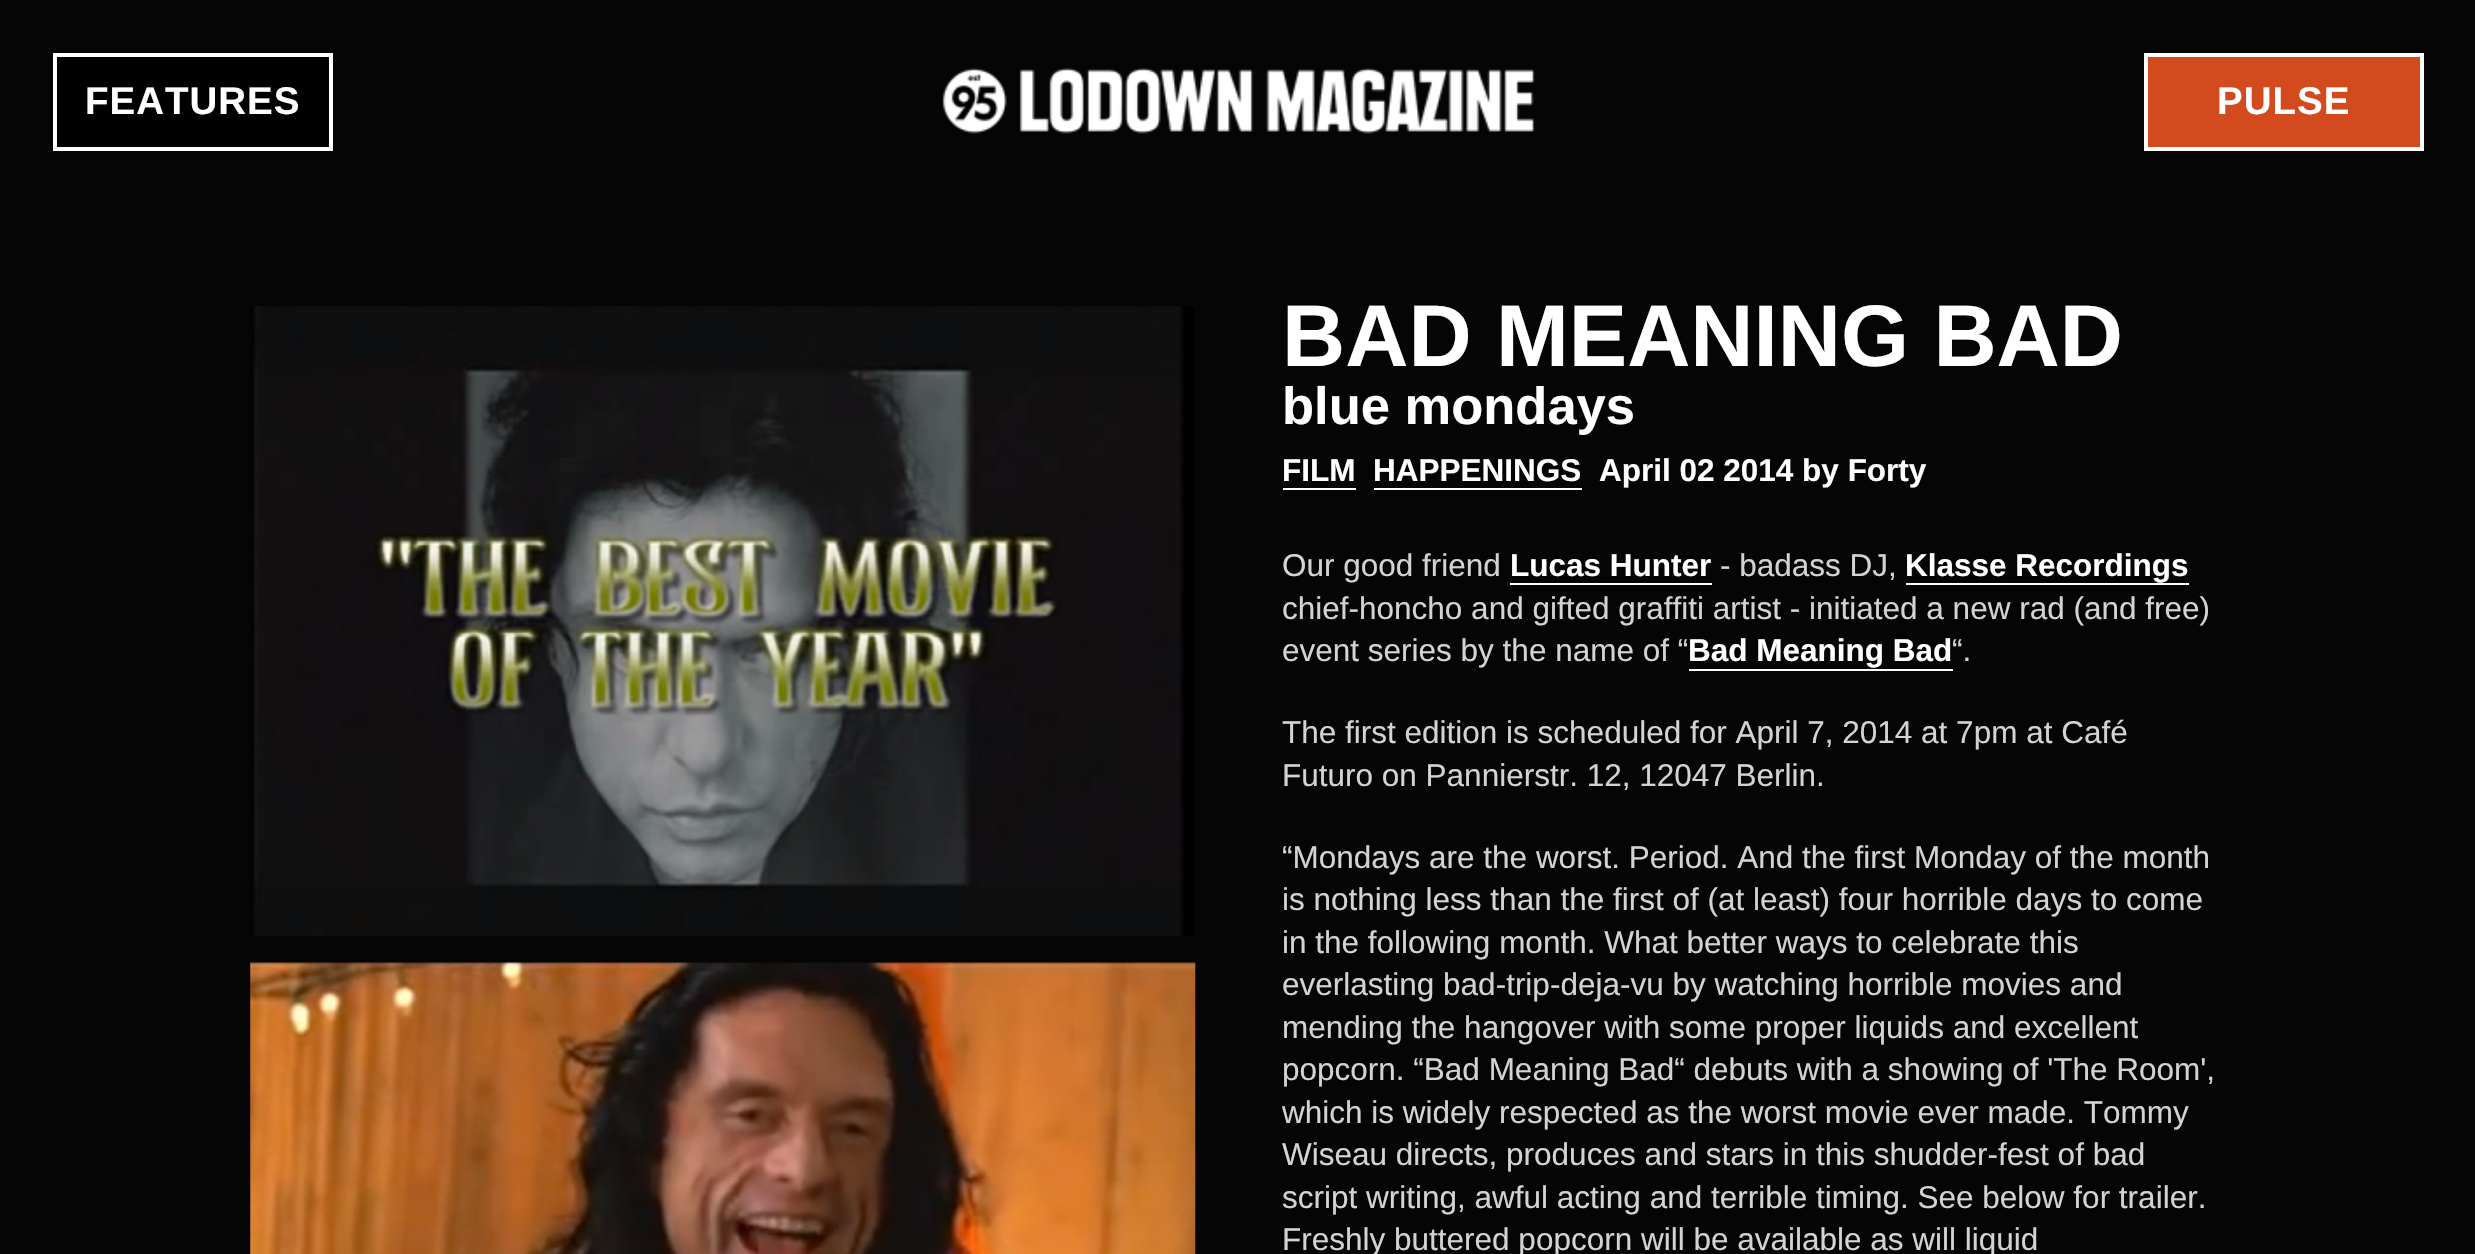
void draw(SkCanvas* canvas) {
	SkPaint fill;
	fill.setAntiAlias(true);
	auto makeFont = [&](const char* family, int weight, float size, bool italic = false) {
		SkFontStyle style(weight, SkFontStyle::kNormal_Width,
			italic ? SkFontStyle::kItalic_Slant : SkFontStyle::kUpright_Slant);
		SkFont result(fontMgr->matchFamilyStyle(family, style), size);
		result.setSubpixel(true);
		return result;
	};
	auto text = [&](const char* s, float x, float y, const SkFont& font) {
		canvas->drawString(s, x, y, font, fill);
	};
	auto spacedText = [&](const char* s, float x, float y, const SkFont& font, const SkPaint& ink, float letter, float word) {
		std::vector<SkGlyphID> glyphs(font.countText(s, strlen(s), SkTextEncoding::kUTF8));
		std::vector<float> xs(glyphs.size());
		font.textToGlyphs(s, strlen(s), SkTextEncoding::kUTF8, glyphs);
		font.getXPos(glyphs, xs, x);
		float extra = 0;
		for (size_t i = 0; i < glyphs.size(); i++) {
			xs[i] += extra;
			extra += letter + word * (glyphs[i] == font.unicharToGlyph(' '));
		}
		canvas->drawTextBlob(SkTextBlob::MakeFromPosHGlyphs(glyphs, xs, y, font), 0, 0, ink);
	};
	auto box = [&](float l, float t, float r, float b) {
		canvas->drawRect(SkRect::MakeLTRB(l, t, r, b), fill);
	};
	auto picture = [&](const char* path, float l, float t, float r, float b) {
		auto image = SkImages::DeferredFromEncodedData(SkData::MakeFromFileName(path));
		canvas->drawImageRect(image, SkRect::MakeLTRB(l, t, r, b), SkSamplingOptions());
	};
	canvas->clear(0xFF050505);
	picture("image0.png", 942, 68, 1535, 134);
	fill.setColor(0xFF000000);
	canvas->drawRect(SkRect::MakeLTRB(55, 55, 331, 149), fill);
	fill.setStyle(SkPaint::kStroke_Style);
	fill.setStrokeWidth(4);
	fill.setColor(0xFFFFFFFF);
	canvas->drawRect(SkRect::MakeLTRB(55, 55, 331, 149), fill);
	fill.setStyle(SkPaint::kFill_Style);
	fill.setColor(0xFFD34A1F);
	canvas->drawRect(SkRect::MakeLTRB(2146, 55, 2422, 149), fill);
	fill.setStyle(SkPaint::kStroke_Style);
	fill.setColor(0xFFFFFFFF);
	canvas->drawRect(SkRect::MakeLTRB(2146, 55, 2422, 149), fill);
	picture("image1.png", 251, 306, 1195, 936);
	picture("image2.png", 250, 962, 1196, 1254);
	fill.setStyle(SkPaint::kFill_Style);
	box(1283, 488, 1356, 490);
	box(1374, 488, 1582, 490);
	box(1510, 583, 1712, 585);
	box(1906, 583, 2189, 585);
	box(1689, 669, 1953, 671);
	auto font1 = makeFont("Liberation Sans", 700, 38.5f);
	spacedText("FEATURES", 85, 114, font1, fill, 1, 0);
	spacedText("PULSE", 2217, 114, font1, fill, 1, 0);
	auto font2 = makeFont("Liberation Sans", 700, 87.5f);
	text("BAD MEANING BAD", 1282, 366, font2);
	auto font3 = makeFont("Liberation Sans", 700, 52.5f);
	text("blue mondays", 1282, 424, font3);
	auto font4 = makeFont("Liberation Sans", 700, 31.5f);
	text("FILM", 1282, 481, font4);
	text("HAPPENINGS", 1373, 481, font4);
	text("April 02 2014 by Forty", 1599, 481, font4);
	auto font5 = makeFont("Liberation Sans", 400, 31.5f);
	fill.setColor(0xFFD3D3D3);
	text("Our good friend", 1282, 576, font5);
	fill.setColor(0xFFFFFFFF);
	text("Lucas Hunter", 1510, 576, font4);
	fill.setColor(0xFFD3D3D3);
	text("- badass DJ,", 1720, 576, font5);
	fill.setColor(0xFFFFFFFF);
	text("Klasse Recordings", 1905, 576, font4);
	fill.setColor(0xFFD3D3D3);
	text("chief-honcho and gifted graffiti artist - initiated a new rad (and free)", 1282, 619, font5);
	text("event series by the name of “", 1282, 661, font5);
	fill.setColor(0xFFFFFFFF);
	text("Bad Meaning Bad", 1688, 661, font4);
	fill.setColor(0xFFD3D3D3);
	text("“.", 1952, 661, font5);
	text("The first edition is scheduled for April 7, 2014 at 7pm at Café", 1282, 743, font5);
	text("Futuro on Pannierstr. 12, 12047 Berlin.", 1282, 786, font5);
	text("“Mondays are the worst. Period. And the first Monday of the month", 1282, 868, font5);
	text("is nothing less than the first of (at least) four horrible days to come", 1282, 910, font5);
	text("in the following month. What better ways to celebrate this", 1282, 953, font5);
	text("everlasting bad-trip-deja-vu by watching horrible movies and", 1282, 995, font5);
	text("mending the hangover with some proper liquids and excellent", 1282, 1038, font5);
	text("popcorn. “Bad Meaning Bad“ debuts with a showing of 'The Room',", 1282, 1080, font5);
	text("which is widely respected as the worst movie ever made. Tommy", 1282, 1123, font5);
	text("Wiseau directs, produces and stars in this shudder-fest of bad", 1282, 1165, font5);
	text("script writing, awful acting and terrible timing. See below for trailer.", 1282, 1208, font5);
	text("Freshly buttered popcorn will be available as will liquid", 1282, 1250, font5);
}
